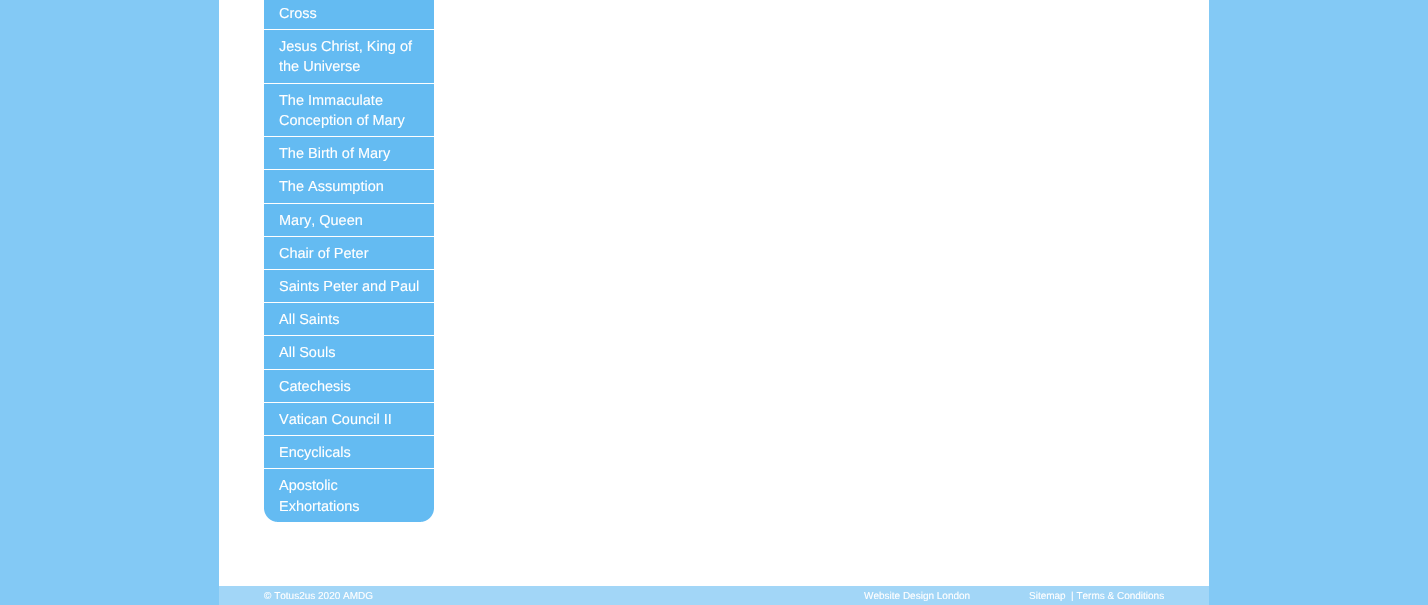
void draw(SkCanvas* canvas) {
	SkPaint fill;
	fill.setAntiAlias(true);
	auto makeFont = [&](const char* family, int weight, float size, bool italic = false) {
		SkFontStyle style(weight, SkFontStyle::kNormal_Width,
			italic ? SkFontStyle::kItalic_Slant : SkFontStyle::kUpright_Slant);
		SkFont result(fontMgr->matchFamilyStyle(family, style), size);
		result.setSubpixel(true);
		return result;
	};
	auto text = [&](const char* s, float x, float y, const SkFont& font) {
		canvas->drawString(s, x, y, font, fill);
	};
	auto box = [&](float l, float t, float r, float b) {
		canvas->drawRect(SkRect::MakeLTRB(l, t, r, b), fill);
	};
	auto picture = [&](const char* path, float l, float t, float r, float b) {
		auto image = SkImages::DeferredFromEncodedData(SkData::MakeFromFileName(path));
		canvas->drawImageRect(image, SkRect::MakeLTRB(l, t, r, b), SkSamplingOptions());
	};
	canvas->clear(0xFF83C9F5);
	fill.setColor(0xFFFFFFFF);
	box(219, 0, 1209, 586);
	fill.setColor(0xFF64BBF2);
	box(264, 0, 434, 29);
	box(264, 30, 434, 83);
	box(264, 84, 434, 136);
	box(264, 137, 434, 169);
	box(264, 170, 434, 203);
	box(264, 204, 434, 236);
	box(264, 237, 434, 269);
	box(264, 270, 434, 302);
	box(264, 303, 434, 335);
	box(264, 336, 434, 369);
	box(264, 370, 434, 402);
	box(264, 403, 434, 435);
	box(264, 436, 434, 468);
	box(264, 469, 434, 509);
	picture("image0.png", 264, 509, 434, 522);
	fill.setColor(0xFFA2D6F7);
	box(219, 586, 1209, 605);
	auto font1 = makeFont("Liberation Sans", 400, 14.5f);
	fill.setColor(0xFFFFFFFF);
	text("Cross", 279, 18, font1);
	text("Jesus Christ, King of", 279, 51, font1);
	text("the Universe", 279, 71, font1);
	text("The Immaculate", 279, 105, font1);
	text("Conception of Mary", 279, 125, font1);
	text("The Birth of Mary", 279, 158, font1);
	text("The Assumption", 279, 191, font1);
	text("Mary, Queen", 279, 225, font1);
	text("Chair of Peter", 279, 258, font1);
	text("Saints Peter and Paul", 279, 291, font1);
	text("All Saints", 279, 324, font1);
	text("All Souls", 279, 357, font1);
	text("Catechesis", 279, 391, font1);
	text("Vatican Council II", 279, 424, font1);
	text("Encyclicals", 279, 457, font1);
	text("Apostolic", 279, 490, font1);
	text("Exhortations", 279, 511, font1);
	auto font2 = makeFont("Liberation Sans", 400, 10);
	text("© Totus2us 2020 AMDG", 264, 599, font2);
	text("Website Design London", 864, 599, font2);
	text("Sitemap", 1029, 599, font2);
	text("| Terms & Conditions", 1071, 599, font2);
}
